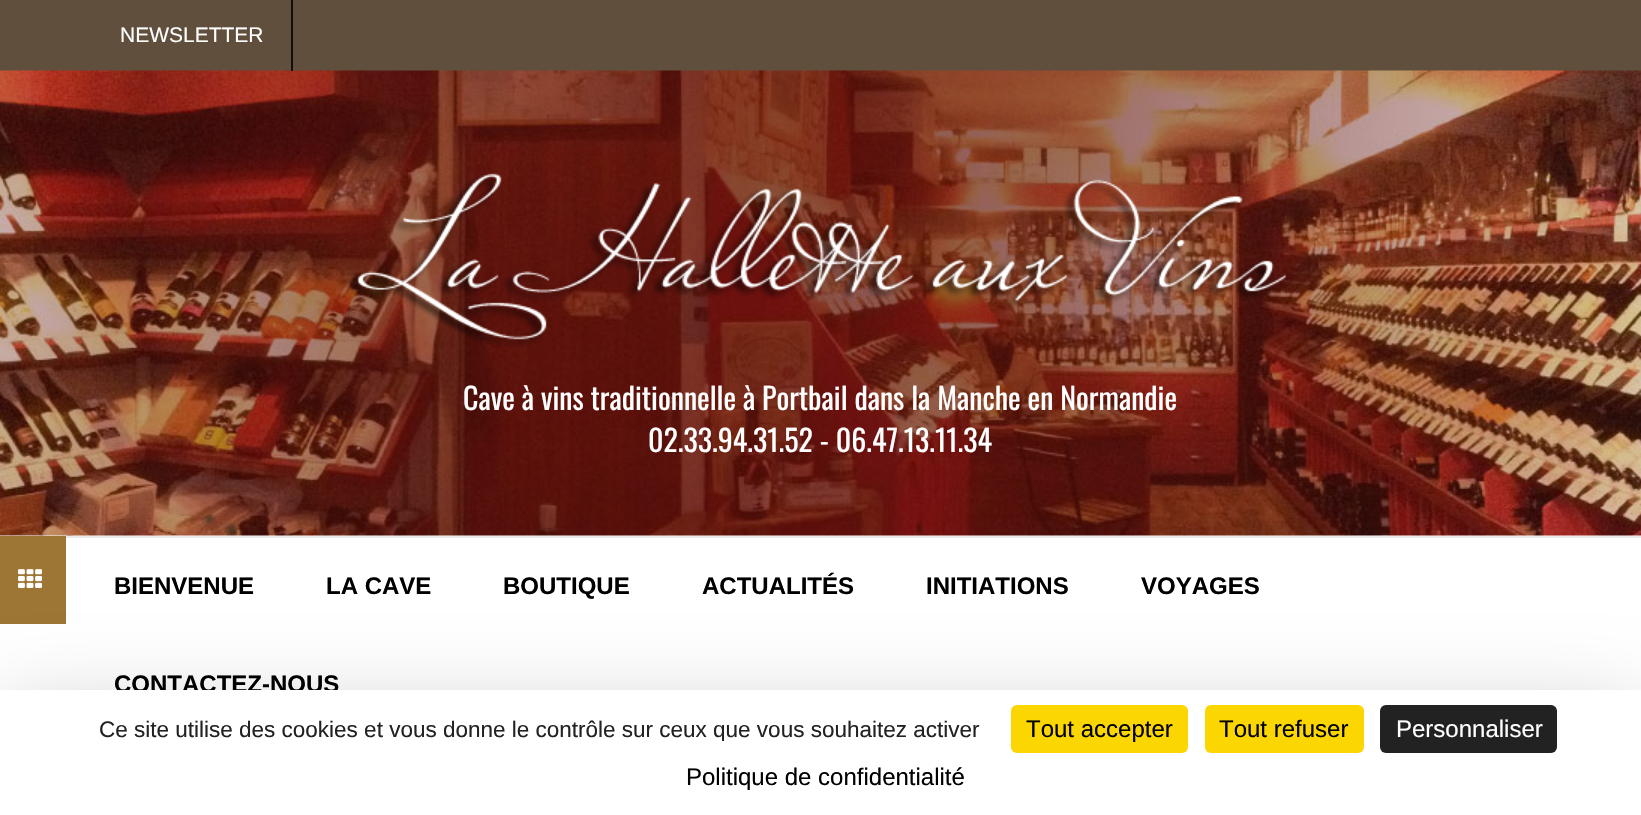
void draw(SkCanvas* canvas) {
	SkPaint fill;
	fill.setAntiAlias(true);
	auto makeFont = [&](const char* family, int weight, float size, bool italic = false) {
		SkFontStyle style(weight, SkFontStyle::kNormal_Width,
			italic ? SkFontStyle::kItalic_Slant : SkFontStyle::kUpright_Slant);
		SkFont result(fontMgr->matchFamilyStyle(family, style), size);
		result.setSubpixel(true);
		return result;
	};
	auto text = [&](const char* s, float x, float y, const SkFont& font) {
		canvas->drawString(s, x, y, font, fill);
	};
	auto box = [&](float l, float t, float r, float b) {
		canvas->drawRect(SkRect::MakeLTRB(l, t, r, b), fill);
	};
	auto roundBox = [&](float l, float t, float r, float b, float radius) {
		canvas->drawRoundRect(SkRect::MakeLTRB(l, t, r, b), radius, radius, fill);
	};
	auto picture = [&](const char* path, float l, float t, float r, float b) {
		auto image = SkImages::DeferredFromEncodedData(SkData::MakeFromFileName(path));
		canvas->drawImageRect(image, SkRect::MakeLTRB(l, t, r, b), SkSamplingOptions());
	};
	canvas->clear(0xFFFFFFFF);
	fill.setColor(0xFF604F3D);
	box(0, 0, 1641, 71);
	picture("image0.png", 0, 70, 1641, 536);
	fill.setColor(0xFF0F0F0F);
	box(291, 0, 293, 71);
	picture("image1.png", 347, 173, 1287, 347);
	fill.setColor(0xFF9D7535);
	box(0, 536, 66, 624);
	picture("image2.png", 18, 569, 42, 588);
	fill.setColor(0xFFEAE9E9);
	box(66, 536, 1641, 538);
	fill.setColor(0x40000000);
	fill.setMaskFilter(SkMaskFilter::MakeBlur(kNormal_SkBlurStyle, 45));
	canvas->drawRect(SkRect::MakeLTRB(0, 720, 1641, 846), fill);
	fill.setMaskFilter(nullptr);
	auto font1 = makeFont("Liberation Sans", 400, 21);
	fill.setColor(0xFFFFFFFF);
	text("NEWSLETTER", 120, 42, font1);
	auto font2 = makeFont("Oswald", 400, 30);
	text("Cave à vins traditionnelle à Portbail dans la Manche en Normandie", 463, 410, font2);
	text("02.33.94.31.52 - 06.47.13.11.34", 648, 452, font2);
	auto font3 = makeFont("Liberation Sans", 700, 24);
	fill.setColor(0xFF000000);
	text("BIENVENUE", 114, 594, font3);
	text("LA CAVE", 326, 594, font3);
	text("BOUTIQUE", 503, 594, font3);
	text("ACTUALITÉS", 702, 594, font3);
	text("INITIATIONS", 926, 594, font3);
	text("VOYAGES", 1141, 594, font3);
	text("CONTACTEZ-NOUS", 114, 692, font3);
	fill.setColor(0xFFFFFFFF);
	box(0, 690, 1641, 815);
	canvas->save();
	canvas->clipRect(SkRect::MakeLTRB(84, 716, 995, 741));
	auto font4 = makeFont("Liberation Sans", 400, 22.5f);
	fill.setColor(0xFF222222);
	text("Ce site utilise des cookies et vous donne le contrôle sur ceux que vous souhaitez activer", 99, 737, font4);
	canvas->restore();
	fill.setColor(0xFFFBD600);
	roundBox(1011, 705, 1188, 753, 6);
	auto font5 = makeFont("Liberation Sans", 400, 24);
	fill.setColor(0xFF000000);
	text("Tout accepter", 1026, 737, font5);
	fill.setColor(0xFFFBD600);
	roundBox(1205, 705, 1364, 753, 6);
	fill.setColor(0xFF000000);
	text("Tout refuser", 1219, 737, font5);
	fill.setColor(0xFF222222);
	roundBox(1380, 705, 1557, 753, 6);
	fill.setColor(0xFFFFFFFF);
	text("Personnaliser", 1396, 737, font5);
	fill.setColor(0xFF000000);
	text("Politique de confidentialité", 686, 785, font5);
}
